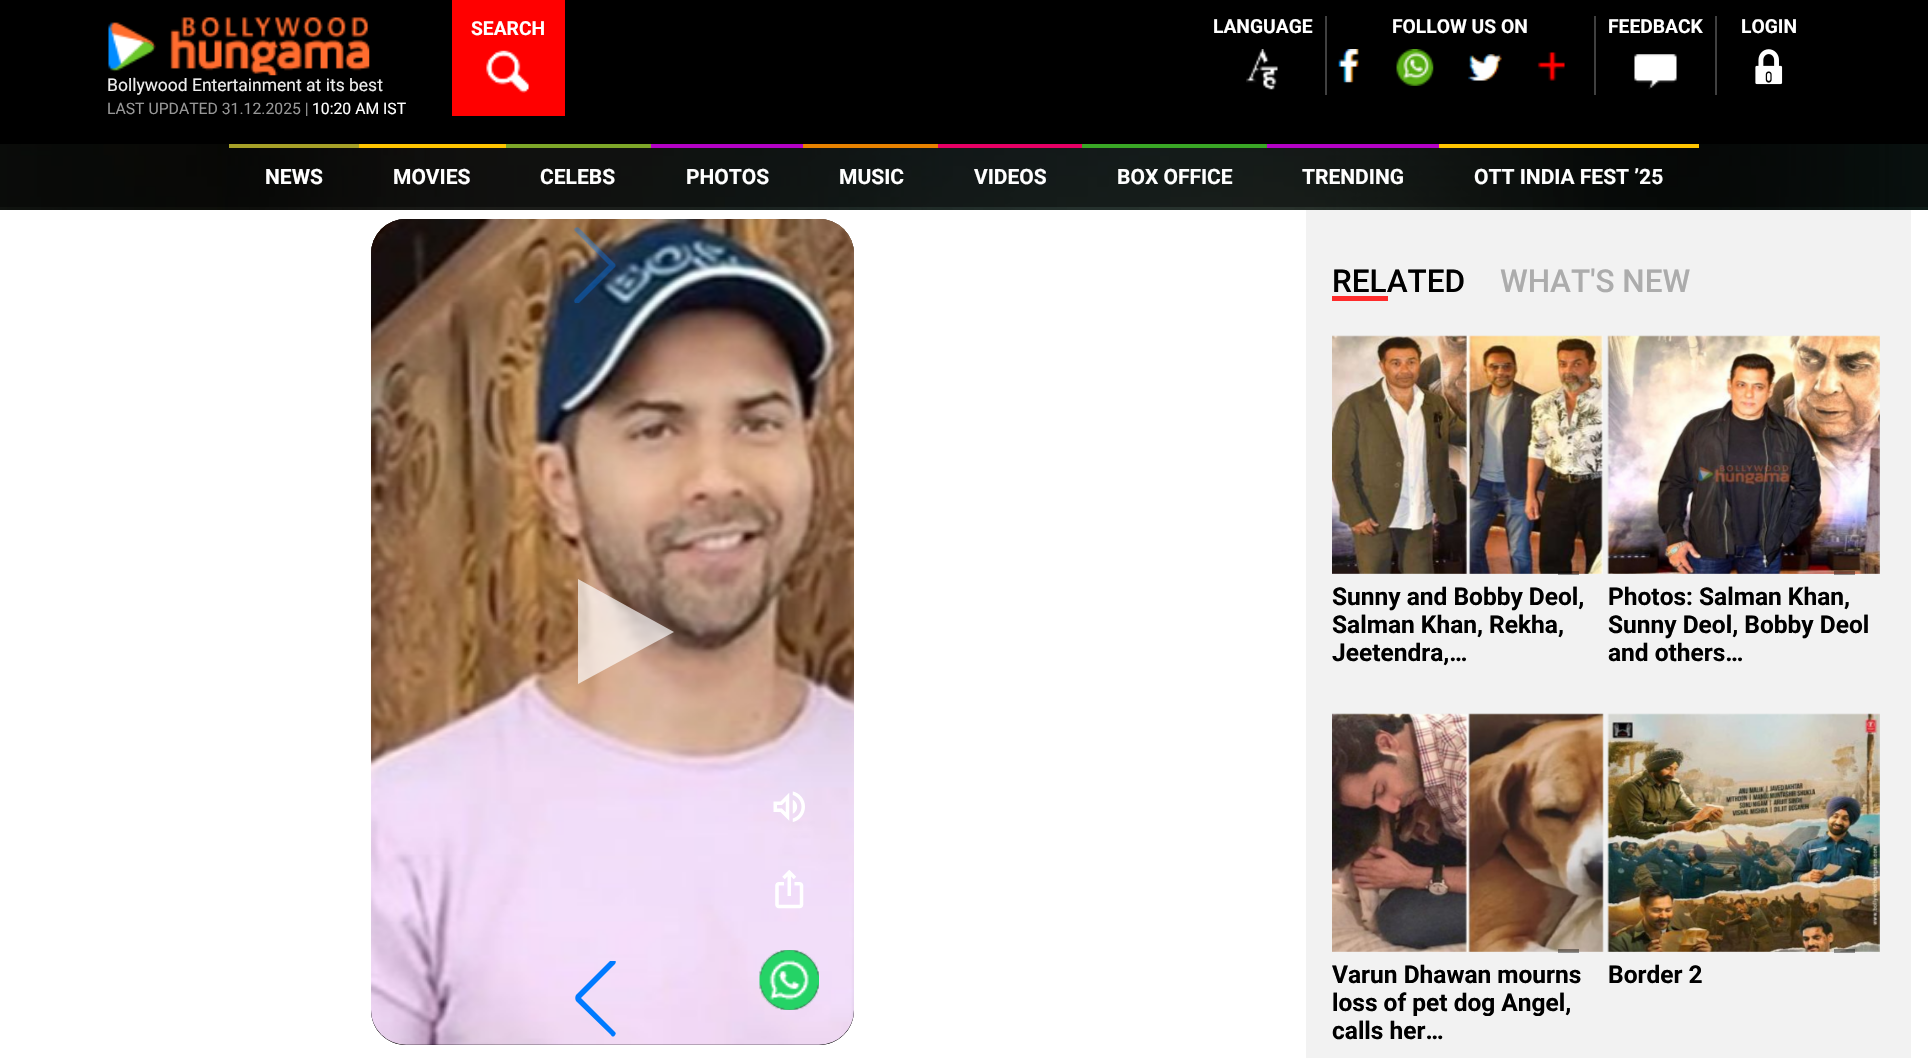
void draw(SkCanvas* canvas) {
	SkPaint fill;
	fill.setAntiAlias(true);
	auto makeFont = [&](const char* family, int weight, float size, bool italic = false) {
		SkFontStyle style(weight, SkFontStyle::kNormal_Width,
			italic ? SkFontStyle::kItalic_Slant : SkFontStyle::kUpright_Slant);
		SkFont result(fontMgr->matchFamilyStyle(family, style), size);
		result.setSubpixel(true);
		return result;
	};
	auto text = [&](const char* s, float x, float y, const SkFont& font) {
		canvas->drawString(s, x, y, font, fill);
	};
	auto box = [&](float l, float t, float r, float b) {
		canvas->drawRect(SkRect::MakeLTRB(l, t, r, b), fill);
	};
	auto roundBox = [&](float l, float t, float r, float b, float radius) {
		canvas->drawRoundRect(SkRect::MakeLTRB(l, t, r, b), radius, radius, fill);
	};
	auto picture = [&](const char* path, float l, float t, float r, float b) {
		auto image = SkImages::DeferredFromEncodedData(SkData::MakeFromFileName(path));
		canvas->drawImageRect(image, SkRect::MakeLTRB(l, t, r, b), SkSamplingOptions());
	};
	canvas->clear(0xFFFFFFFF);
	picture("image0.png", 0, 144, 1928, 210);
	fill.setColor(0xFF000000);
	box(0, 0, 1928, 144);
	fill.setColor(0xFFFF0000);
	box(452, 0, 565, 116);
	picture("image1.png", 486, 50, 530, 93);
	fill.setColor(0xFF404040);
	box(1325, 16, 1327, 95);
	picture("image2.png", 1246, 49, 1278, 90);
	box(1594, 16, 1596, 95);
	picture("image3.png", 1338, 49, 1359, 83);
	picture("image4.png", 1396, 49, 1434, 86);
	picture("image5.png", 1468, 54, 1502, 81);
	picture("image6.png", 1537, 52, 1565, 81);
	box(1715, 16, 1717, 95);
	picture("image7.png", 1634, 54, 1677, 90);
	picture("image8.png", 1755, 49, 1783, 85);
	picture("image9.png", 108, 17, 370, 76);
	fill.setColor(0x6E000000);
	box(0, 144, 1928, 210);
	box(0, 144, 1928, 207);
	fill.setColor(0xFFA6A028);
	box(229, 144, 359, 148);
	fill.setColor(0xFFFFC501);
	box(359, 144, 506, 148);
	fill.setColor(0xFF7DA729);
	box(506, 144, 651, 148);
	fill.setColor(0xFFB403C5);
	box(651, 144, 803, 148);
	fill.setColor(0xFFE78200);
	box(803, 144, 938, 148);
	fill.setColor(0xFFE60065);
	box(938, 144, 1082, 148);
	fill.setColor(0xFF3AA726);
	box(1082, 144, 1267, 148);
	fill.setColor(0xFFB403C5);
	box(1267, 144, 1439, 148);
	fill.setColor(0xFFFFC501);
	box(1439, 144, 1699, 148);
	fill.setColor(0xFF000000);
	roundBox(371, 219, 854, 1045, 35);
	picture("image10.png", 371, 219, 854, 1045);
	{
		const SkColor colors[] = {0x00000000, 0xFF000000};
		const float stops[] = {0, 1};
		const SkPoint ends[] = {{613, 838}, {613, 1045}};
		fill.setShader(SkGradientShader::MakeLinear(ends, colors, stops, 2, SkTileMode::kClamp));
		fill.setAlpha(255);
	}
	canvas->drawPath(SkPathBuilder().moveTo(371, 838).lineTo(854, 838).lineTo(854, 1010).cubicTo(854, 1029.5f, 838.5f, 1045, 819, 1045).lineTo(406, 1045).cubicTo(386.5f, 1045, 371, 1029.5f, 371, 1010).close().detach(), fill);
	picture("image11.png", 371, 219, 854, 1045);
	fill.setShader(nullptr);
	fill.setColor(0xABFFFFFF);
	canvas->drawPath(SkPathBuilder().moveTo(578, 684).lineTo(578, 579).lineTo(674, 632).close().detach(), fill);
	picture("image12.png", 773, 791, 805, 822);
	picture("image13.png", 775, 870, 804, 909);
	fill.setColor(0x80000000);
	roundBox(760, 950, 819, 1010, 29.5f);
	picture("image14.png", 759, 950, 819, 1010);
	canvas->save();
	canvas->clipRect(SkRect::MakeLTRB(574, 226, 616, 303));
	fill.setColor(0x59007AFF);
	canvas->drawPath(SkPathBuilder().moveTo(575, 303).cubicTo(574, 302, 574, 300, 575, 299).lineTo(609, 265).lineTo(575, 231).cubicTo(574, 230, 574, 229, 575, 228).cubicTo(577, 227, 578, 227, 579, 228).lineTo(614, 263).cubicTo(616, 264, 616, 267, 614, 268).lineTo(579, 303).cubicTo(578, 304, 577, 304, 575, 303).close().detach(), fill);
	canvas->restore();
	canvas->save();
	canvas->clipRect(SkRect::MakeLTRB(574, 961, 616, 1038));
	fill.setColor(0xFF007AFF);
	canvas->drawPath(SkPathBuilder().moveTo(615, 960).cubicTo(616, 961, 616, 963, 615, 964).lineTo(581, 998).lineTo(615, 1032).cubicTo(616, 1033, 616, 1034, 615, 1035).cubicTo(614, 1037, 612, 1037, 611, 1035).lineTo(576, 1001).cubicTo(575, 999, 575, 997, 576, 995).lineTo(611, 960).cubicTo(612, 959, 614, 959, 615, 960).close().detach(), fill);
	canvas->restore();
	fill.setColor(0xFFF2F2F2);
	box(1306, 210, 1911, 1058);
	fill.setColor(0xFFFF2B2B);
	box(1332, 296, 1388, 301);
	picture("image15.png", 1332, 335, 1603, 574);
	fill.setColor(0x66000000);
	box(1558, 571, 1579, 575);
	picture("image16.png", 1607, 335, 1880, 574);
	box(1834, 571, 1855, 575);
	picture("image17.png", 1332, 713, 1604, 952);
	box(1558, 949, 1579, 953);
	picture("image18.png", 1607, 713, 1880, 952);
	box(1834, 949, 1855, 953);
	auto font1 = makeFont("Roboto", 700, 19.25f);
	fill.setColor(0xFFFFFFFF);
	text("SEARCH", 471, 35, font1);
	text("LANGUAGE", 1213, 33, font1);
	text("FOLLOW US ON", 1392, 33, font1);
	text("FEEDBACK", 1608, 33, font1);
	text("LOGIN", 1741, 33, font1);
	auto font2 = makeFont("Roboto", 400, 17.5f);
	fill.setColor(0xFFEEEEEE);
	text("Bollywood Entertainment at its best", 107, 91, font2);
	auto font3 = makeFont("Roboto", 400, 15.75f);
	fill.setColor(0xFF979797);
	text("LAST UPDATED 31.12.2025 |", 107, 114, font3);
	fill.setColor(0xFFFFFFFF);
	text("10:20 AM IST", 312, 114, font3);
	auto font4 = makeFont("Roboto", 700, 21);
	text("NEWS", 265, 184, font4);
	text("MOVIES", 393, 184, font4);
	text("CELEBS", 540, 184, font4);
	text("PHOTOS", 686, 184, font4);
	text("MUSIC", 839, 184, font4);
	text("VIDEOS", 974, 184, font4);
	text("BOX OFFICE", 1117, 184, font4);
	text("TRENDING", 1302, 184, font4);
	text("OTT INDIA FEST ’25", 1474, 184, font4);
	auto font5 = makeFont("Roboto", 500, 31.5f);
	fill.setColor(0xFF000000);
	text("RELATED", 1332, 292, font5);
	fill.setColor(0xFFACACAC);
	text("WHAT'S NEW", 1500, 292, font5);
	auto font6 = makeFont("Roboto", 700, 24.5f);
	fill.setColor(0xFF000000);
	text("Sunny and Bobby Deol,", 1332, 605, font6);
	text("Salman Khan, Rekha,", 1332, 633, font6);
	text("Jeetendra,…", 1332, 661, font6);
	text("Photos: Salman Khan,", 1608, 605, font6);
	text("Sunny Deol, Bobby Deol", 1608, 633, font6);
	text("and others…", 1608, 661, font6);
	text("Varun Dhawan mourns", 1332, 983, font6);
	text("loss of pet dog Angel,", 1332, 1011, font6);
	text("calls her…", 1332, 1039, font6);
	text("Border 2", 1608, 983, font6);
}
